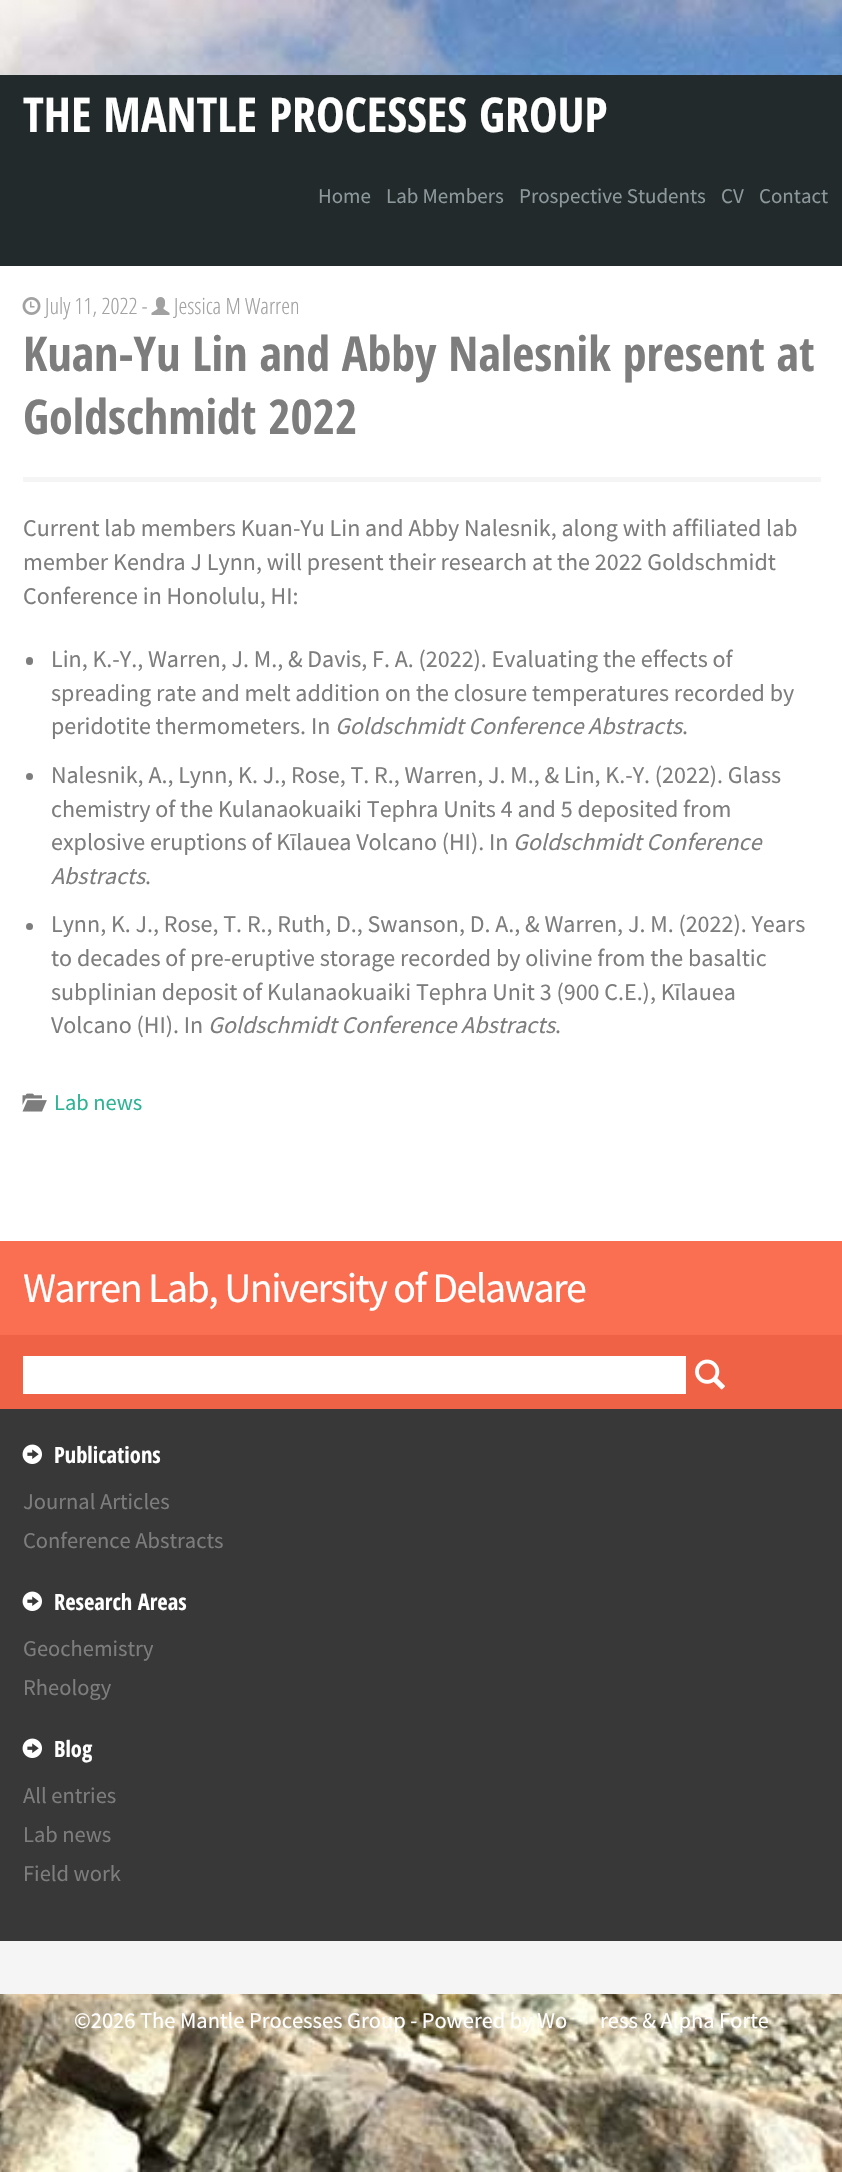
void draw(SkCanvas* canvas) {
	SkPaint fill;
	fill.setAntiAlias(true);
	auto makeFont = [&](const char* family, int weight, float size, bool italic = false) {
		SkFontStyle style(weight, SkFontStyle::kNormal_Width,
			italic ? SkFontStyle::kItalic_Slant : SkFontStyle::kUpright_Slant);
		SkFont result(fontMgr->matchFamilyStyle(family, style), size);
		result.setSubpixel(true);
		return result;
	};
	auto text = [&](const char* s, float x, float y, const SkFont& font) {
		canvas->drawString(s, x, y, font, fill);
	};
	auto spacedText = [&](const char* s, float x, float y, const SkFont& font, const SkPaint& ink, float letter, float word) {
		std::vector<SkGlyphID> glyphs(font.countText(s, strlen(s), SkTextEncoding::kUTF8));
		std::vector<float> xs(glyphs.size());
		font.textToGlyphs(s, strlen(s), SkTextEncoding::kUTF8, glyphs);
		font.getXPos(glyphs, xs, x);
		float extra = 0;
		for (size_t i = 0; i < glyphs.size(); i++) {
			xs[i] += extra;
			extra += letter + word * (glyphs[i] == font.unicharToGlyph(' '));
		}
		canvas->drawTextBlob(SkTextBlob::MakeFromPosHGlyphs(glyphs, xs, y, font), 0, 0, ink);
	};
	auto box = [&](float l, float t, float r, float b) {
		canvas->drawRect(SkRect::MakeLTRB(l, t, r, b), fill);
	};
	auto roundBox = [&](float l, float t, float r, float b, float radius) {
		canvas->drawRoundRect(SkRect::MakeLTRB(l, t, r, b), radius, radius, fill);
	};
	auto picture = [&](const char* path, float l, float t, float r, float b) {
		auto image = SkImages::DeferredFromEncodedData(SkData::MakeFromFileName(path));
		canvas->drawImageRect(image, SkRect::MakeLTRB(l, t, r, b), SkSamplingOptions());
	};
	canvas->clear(0xFFFFFFFF);
	picture("image0.png", 0, 0, 842, 2172);
	fill.setColor(0xFFFFFFFF);
	box(0, 266, 842, 1241);
	fill.setColor(0xFF222A2B);
	box(0, 75, 842, 266);
	picture("image1.png", 22, 297, 41, 315);
	picture("image2.png", 151, 297, 170, 315);
	fill.setColor(0xFFF5F5F5);
	box(23, 477, 821, 482);
	fill.setColor(0xFF7D7D7D);
	roundBox(26, 657, 33, 665, 3.5f);
	canvas->drawCircle(29.5f, 776.5f, 3.5f, fill);
	canvas->drawCircle(29.5f, 926.5f, 3.5f, fill);
	picture("image3.png", 22, 1093, 47, 1112);
	fill.setColor(0xFF383838);
	box(0, 1409, 842, 1941);
	fill.setColor(0xFFFA6E52);
	box(0, 1241, 842, 1335);
	fill.setColor(0xFFF06246);
	box(0, 1335, 842, 1409);
	fill.setColor(0xFFFFFFFF);
	box(23, 1356, 686, 1394);
	picture("image4.png", 695, 1359, 725, 1390);
	picture("image5.png", 22, 1444, 42, 1464);
	picture("image5.png", 22, 1591, 42, 1611);
	picture("image5.png", 22, 1738, 42, 1758);
	fill.setColor(0xFFF5F5F5);
	box(0, 1941, 842, 1994);
	auto font1 = makeFont("Open Sans Condensed", 700, 48);
	fill.setColor(0xFFFFFFFF);
	text("THE MANTLE PROCESSES GROUP", 23, 132, font1);
	auto font2 = makeFont("Source Sans Pro", 400, 21);
	fill.setColor(0xFF8C989C);
	text("Home", 318, 203, font2);
	text("Lab Members", 386, 203, font2);
	text("Prospective Students", 519, 203, font2);
	text("CV", 721, 203, font2);
	text("Contact", 759, 203, font2);
	auto font3 = makeFont("Open Sans Condensed", 300, 22.5f);
	fill.setColor(0xFFA1A1A1);
	text("July 11, 2022 -", 45, 314, font3);
	text("Jessica M Warren", 174, 314, font3);
	fill.setColor(0xFF7D7D7D);
	text("Kuan-Yu Lin and Abby Nalesnik present at", 23, 371, font1);
	text("Goldschmidt 2022", 23, 434, font1);
	auto font4 = makeFont("Source Sans Pro", 400, 24);
	text("Current lab members Kuan-Yu Lin and Abby Nalesnik, along with affiliated lab", 23, 536, font4);
	text("member Kendra J Lynn, will present their research at the 2022 Goldschmidt", 23, 570, font4);
	text("Conference in Honolulu, HI:", 23, 604, font4);
	text("Lin, K.-Y., Warren, J. M., & Davis, F. A. (2022). Evaluating the effects of", 51, 667, font4);
	text("spreading rate and melt addition on the closure temperatures recorded by", 51, 701, font4);
	text("peridotite thermometers. In", 51, 734, font4);
	auto font5 = makeFont("Source Sans Pro", 400, 24, true);
	text("Goldschmidt Conference Abstracts", 335, 734, font5);
	text(".", 682, 734, font4);
	text("Nalesnik, A., Lynn, K. J., Rose, T. R., Warren, J. M., & Lin, K.-Y. (2022). Glass", 51, 783, font4);
	text("chemistry of the Kulanaokuaiki Tephra Units 4 and 5 deposited from", 51, 817, font4);
	text("explosive eruptions of Kīlauea Volcano (HI). In", 51, 850, font4);
	text("Goldschmidt Conference", 513, 850, font5);
	text("Abstracts", 51, 884, font5);
	text(".", 145, 884, font4);
	text("Lynn, K. J., Rose, T. R., Ruth, D., Swanson, D. A., & Warren, J. M. (2022). Years", 51, 932, font4);
	text("to decades of pre-eruptive storage recorded by olivine from the basaltic", 51, 966, font4);
	text("subplinian deposit of Kulanaokuaiki Tephra Unit 3 (900 C.E.), Kīlauea", 51, 1000, font4);
	text("Volcano (HI). In", 51, 1033, font4);
	text("Goldschmidt Conference Abstracts", 208, 1033, font5);
	text(".", 555, 1033, font4);
	auto font6 = makeFont("Source Sans Pro", 400, 22.5f);
	fill.setColor(0xFF2EB396);
	text("Lab news", 54, 1110, font6);
	auto font7 = makeFont("Source Sans Pro", 400, 42);
	fill.setColor(0xFFFFFFFF);
	spacedText("Warren Lab, University of Delaware", 23, 1302, font7, fill, -1.5f, 0);
	auto font8 = makeFont("Open Sans Condensed", 700, 22.5f);
	text("Publications", 54, 1463, font8);
	fill.setColor(0xFF7D7D7D);
	text("Journal Articles", 23, 1509, font6);
	text("Conference Abstracts", 23, 1548, font6);
	fill.setColor(0xFFFFFFFF);
	text("Research Areas", 54, 1610, font8);
	fill.setColor(0xFF7D7D7D);
	text("Geochemistry", 23, 1656, font6);
	text("Rheology", 23, 1695, font6);
	fill.setColor(0xFFFFFFFF);
	text("Blog", 54, 1757, font8);
	fill.setColor(0xFF7D7D7D);
	text("All entries", 23, 1803, font6);
	text("Lab news", 23, 1842, font6);
	text("Field work", 23, 1881, font6);
	fill.setColor(0xFFFFFFFF);
	text("©2026 The Mantle Processes Group - Powered by Wo", 74, 2028, font6);
	text("ress & Alpha Forte", 600, 2028, font6);
}
